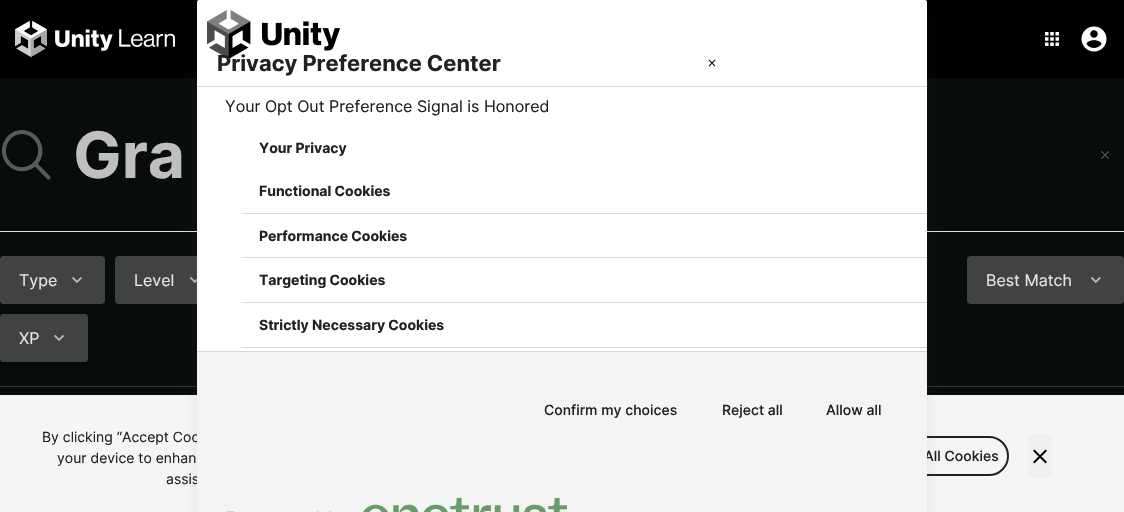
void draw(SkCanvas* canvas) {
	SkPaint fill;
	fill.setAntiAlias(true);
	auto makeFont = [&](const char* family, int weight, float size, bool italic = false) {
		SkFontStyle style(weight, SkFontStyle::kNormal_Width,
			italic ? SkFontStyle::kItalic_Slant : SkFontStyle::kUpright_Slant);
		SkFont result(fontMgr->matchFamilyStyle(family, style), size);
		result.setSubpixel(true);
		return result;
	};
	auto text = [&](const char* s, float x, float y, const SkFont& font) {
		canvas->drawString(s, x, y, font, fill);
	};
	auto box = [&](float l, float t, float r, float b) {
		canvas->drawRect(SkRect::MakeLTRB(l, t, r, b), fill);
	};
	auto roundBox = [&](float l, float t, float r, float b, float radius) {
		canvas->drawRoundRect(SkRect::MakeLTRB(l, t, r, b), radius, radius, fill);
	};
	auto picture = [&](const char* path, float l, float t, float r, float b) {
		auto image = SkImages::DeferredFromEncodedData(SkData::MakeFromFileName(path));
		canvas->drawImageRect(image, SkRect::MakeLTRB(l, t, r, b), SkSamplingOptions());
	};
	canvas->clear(0xFF080C0A);
	fill.setColor(0xFFF5F5F5);
	box(0, 395, 1124, 512);
	fill.setStyle(SkPaint::kStroke_Style);
	fill.setStrokeWidth(2);
	fill.setColor(0xFF212121);
	canvas->drawRoundRect(SkRect::MakeLTRB(864, 437, 1008, 475), 19, 19, fill);
	fill.setStyle(SkPaint::kFill_Style);
	fill.setColor(0xFF000000);
	box(0, 0, 1124, 78);
	fill.setColor(0xFFE0E0E0);
	box(0, 231, 1124, 232);
	fill.setColor(0xFF333635);
	box(0, 386, 1124, 387);
	fill.setColor(0xFF414343);
	roundBox(115, 256, 223, 304, 4);
	picture("image10.png", 189, 277, 197, 283);
	fill.setColor(0x1A32325D);
	fill.setMaskFilter(SkMaskFilter::MakeBlur(kNormal_SkBlurStyle, 7));
	canvas->drawRoundRect(SkRect::MakeLTRB(197, 7, 927, 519), 2, 2, fill);
	fill.setMaskFilter(nullptr);
	fill.setColor(0xFFEFEFEF);
	box(1028, 434, 1052, 478);
	picture("image3.png", 1033, 449, 1047, 464);
	picture("image4.png", 15, 21, 175, 57);
	picture("image5.png", 1045, 32, 1059, 46);
	picture("image6.png", 1081, 26, 1107, 52);
	picture("image7.png", 1, 130, 51, 180);
	picture("image8.png", 1101, 151, 1109, 159);
	fill.setColor(0xFF414343);
	roundBox(0, 256, 105, 304, 4);
	picture("image9.png", 72, 277, 82, 283);
	roundBox(0, 314, 88, 362, 4);
	picture("image11.png", 54, 335, 64, 341);
	roundBox(967, 256, 1124, 304, 4);
	picture("image12.png", 1090, 277, 1101, 283);
	auto font1 = makeFont("Inter", 400, 14);
	fill.setColor(0xFF212121);
	text("By clicking “Accept Coo", 42, 442, font1);
	text("your device to enhan", 57, 463, font1);
	text("assis", 166, 484, font1);
	auto font2 = makeFont("Inter", 500, 14);
	text("All Cookies", 924, 461, font2);
	fill.setColor(0xFFFFFFFF);
	roundBox(197, 0, 927, 512, 2);
	fill.setColor(0xFFF4F4F4);
	box(197, 352, 927, 512);
	picture("image2.png", 227, 497, 567, 512);
	fill.setColor(0xFF212121);
	text("Allow all", 826, 415, font2);
	text("Reject all", 722, 415, font2);
	text("Confirm my choices", 544, 415, font2);
	fill.setColor(0xFFD8D8D8);
	box(197, 351, 927, 352);
	auto font3 = makeFont("Inter", 700, 14);
	fill.setColor(0xFF212121);
	text("Your Privacy", 259, 153, font3);
	text("Strictly Necessary Cookies", 259, 330, font3);
	fill.setColor(0xFFD7D7D7);
	canvas->drawPath(SkPathBuilder().moveTo(927, 348).lineTo(237, 348).lineTo(247, 347).lineTo(927, 347).close().detach(), fill);
	fill.setColor(0xFF212121);
	text("Targeting Cookies", 259, 285, font3);
	fill.setColor(0xFFD7D7D7);
	canvas->drawPath(SkPathBuilder().moveTo(927, 303).lineTo(237, 303).lineTo(247, 302).lineTo(927, 302).close().detach(), fill);
	fill.setColor(0xFF212121);
	text("Performance Cookies", 259, 241, font3);
	fill.setColor(0xFFD7D7D7);
	canvas->drawPath(SkPathBuilder().moveTo(927, 258).lineTo(237, 258).lineTo(247, 257).lineTo(927, 257).close().detach(), fill);
	fill.setColor(0xFF212121);
	text("Functional Cookies", 259, 196, font3);
	fill.setColor(0xFFD7D7D7);
	canvas->drawPath(SkPathBuilder().moveTo(927, 214).lineTo(237, 214).lineTo(247, 213).lineTo(927, 213).close().detach(), fill);
	auto font4 = makeFont("Inter", 400, 16);
	fill.setColor(0xFF212121);
	text("Your Opt Out Preference Signal is Honored", 225, 112, font4);
	picture("image1.png", 708, 59, 716, 67);
	picture("image0.png", 207, 10, 340, 59);
	auto font5 = makeFont("Inter", 700, 21.9f);
	text("Privacy Preference Center", 217, 71, font5);
	fill.setColor(0xFFD8D8D8);
	box(197, 86, 927, 87);
	auto font6 = makeFont("Inter", 700, 64);
	fill.setColor(0xFFBFBFBF);
	text("Gra", 73, 178, font6);
	fill.setColor(0xFFE5E5E5);
	text("Type", 19, 286, font4);
	text("Level", 134, 286, font4);
	text("XP", 19, 344, font4);
	text("Best Match", 986, 286, font4);
}
